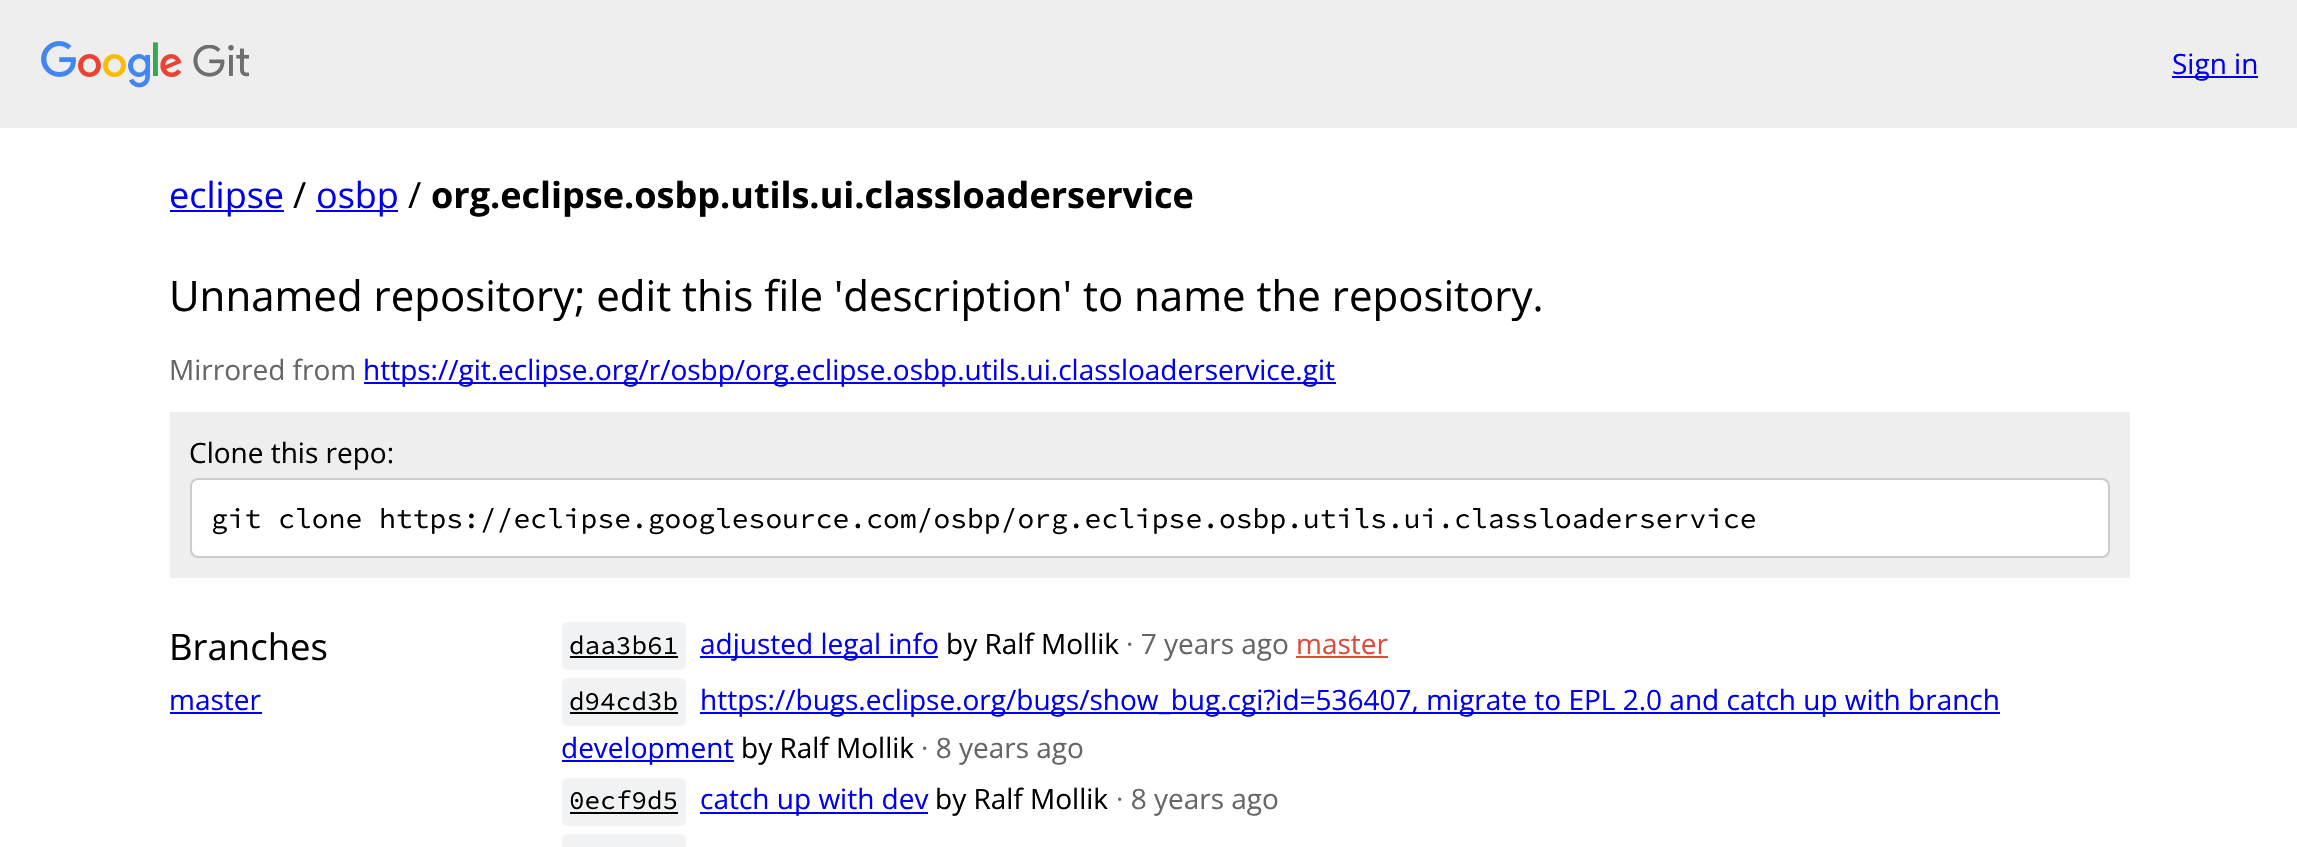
void draw(SkCanvas* canvas) {
	SkPaint fill;
	fill.setAntiAlias(true);
	auto makeFont = [&](const char* family, int weight, float size, bool italic = false) {
		SkFontStyle style(weight, SkFontStyle::kNormal_Width,
			italic ? SkFontStyle::kItalic_Slant : SkFontStyle::kUpright_Slant);
		SkFont result(fontMgr->matchFamilyStyle(family, style), size);
		result.setSubpixel(true);
		return result;
	};
	auto text = [&](const char* s, float x, float y, const SkFont& font) {
		canvas->drawString(s, x, y, font, fill);
	};
	auto box = [&](float l, float t, float r, float b) {
		canvas->drawRect(SkRect::MakeLTRB(l, t, r, b), fill);
	};
	auto roundBox = [&](float l, float t, float r, float b, float radius) {
		canvas->drawRoundRect(SkRect::MakeLTRB(l, t, r, b), radius, radius, fill);
	};
	auto picture = [&](const char* path, float l, float t, float r, float b) {
		auto image = SkImages::DeferredFromEncodedData(SkData::MakeFromFileName(path));
		canvas->drawImageRect(image, SkRect::MakeLTRB(l, t, r, b), SkSamplingOptions());
	};
	canvas->clear(0xFFFFFFFF);
	fill.setColor(0xFFEEEEEE);
	box(0, 0, 2297, 128);
	picture("image0.png", 41, 41, 249, 88);
	fill.setColor(0xFF0000EE);
	box(2172, 76, 2258, 78);
	box(170, 210, 284, 212);
	box(316, 210, 398, 212);
	box(364, 382, 1336, 384);
	fill.setColor(0xFFEEEEEE);
	box(170, 412, 2130, 578);
	fill.setColor(0xFFFFFFFF);
	canvas->drawRoundRect(SkRect::MakeLTRB(191, 479, 2109, 557), 7, 7, fill);
	fill.setStyle(SkPaint::kStroke_Style);
	fill.setStrokeWidth(2);
	fill.setColor(0xFFCCCCCC);
	canvas->drawRoundRect(SkRect::MakeLTRB(191, 479, 2109, 557), 7, 7, fill);
	fill.setStyle(SkPaint::kFill_Style);
	fill.setColor(0xFF0000EE);
	box(170, 712, 262, 714);
	fill.setColor(0xFFF1F2F3);
	roundBox(562, 622, 686, 670, 6);
	fill.setColor(0xFF000000);
	box(570, 656, 678, 658);
	fill.setColor(0xFF0000EE);
	box(700, 656, 938, 658);
	fill.setColor(0xFFDD4B39);
	box(1296, 656, 1388, 658);
	fill.setColor(0xFFF1F2F3);
	roundBox(562, 678, 686, 726, 6);
	fill.setColor(0xFF000000);
	box(570, 712, 678, 714);
	fill.setColor(0xFF0000EE);
	box(700, 712, 2000, 714);
	box(562, 760, 734, 762);
	fill.setColor(0xFFF1F2F3);
	roundBox(562, 778, 686, 826, 6);
	fill.setColor(0xFF000000);
	box(570, 812, 678, 814);
	fill.setColor(0xFF0000EE);
	box(700, 812, 928, 814);
	fill.setColor(0xFFF1F2F3);
	roundBox(562, 834, 686, 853, 6);
	auto font1 = makeFont("Open Sans", 400, 28);
	fill.setColor(0xFF0000EE);
	text("Sign in", 2172, 74, font1);
	auto font2 = makeFont("Open Sans", 400, 36);
	text("eclipse", 169, 208, font2);
	fill.setColor(0xFF000000);
	text("/", 293, 208, font2);
	fill.setColor(0xFF0000EE);
	text("osbp", 316, 208, font2);
	fill.setColor(0xFF000000);
	text("/", 408, 208, font2);
	auto font3 = makeFont("Open Sans", 700, 36);
	text("org.eclipse.osbp.utils.ui.classloaderservice", 431, 208, font3);
	auto font4 = makeFont("Open Sans", 400, 42);
	text("Unnamed repository; edit this file 'description' to name the repository.", 169, 311, font4);
	fill.setColor(0xFF666666);
	text("Mirrored from", 169, 380, font1);
	fill.setColor(0xFF0000EE);
	text("https://git.eclipse.org/r/osbp/org.eclipse.osbp.utils.ui.classloaderservice.git", 363, 380, font1);
	fill.setColor(0xFF000000);
	text("Clone this repo:", 189, 463, font1);
	auto font5 = makeFont("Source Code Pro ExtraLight", 200, 28);
	text("git clone https://eclipse.googlesource.com/osbp/org.eclipse.osbp.utils.ui.classloaderservice", 211, 528, font5);
	auto font6 = makeFont("Open Sans", 400, 36.5f);
	text("Branches", 169, 660, font6);
	fill.setColor(0xFF0000EE);
	text("master", 169, 710, font1);
	auto font7 = makeFont("Source Code Pro ExtraLight", 200, 26);
	fill.setColor(0xFF000000);
	text("daa3b61", 569, 654, font7);
	fill.setColor(0xFF0000EE);
	text("adjusted legal info", 700, 654, font1);
	fill.setColor(0xFF000000);
	text("by Ralf Mollik", 946, 654, font1);
	fill.setColor(0xFF666666);
	text("· 7 years ago", 1126, 654, font1);
	fill.setColor(0xFFDD4B39);
	text("master", 1296, 654, font1);
	fill.setColor(0xFF000000);
	text("d94cd3b", 569, 710, font7);
	fill.setColor(0xFF0000EE);
	text("https://bugs.eclipse.org/bugs/show_bug.cgi?id=536407, migrate to EPL 2.0 and catch up with branch", 700, 710, font1);
	text("development", 561, 758, font1);
	fill.setColor(0xFF000000);
	text("by Ralf Mollik", 741, 758, font1);
	fill.setColor(0xFF666666);
	text("· 8 years ago", 921, 758, font1);
	fill.setColor(0xFF000000);
	text("0ecf9d5", 569, 809, font7);
	fill.setColor(0xFF0000EE);
	text("catch up with dev", 700, 809, font1);
	fill.setColor(0xFF000000);
	text("by Ralf Mollik", 935, 809, font1);
	fill.setColor(0xFF666666);
	text("· 8 years ago", 1116, 809, font1);
}
